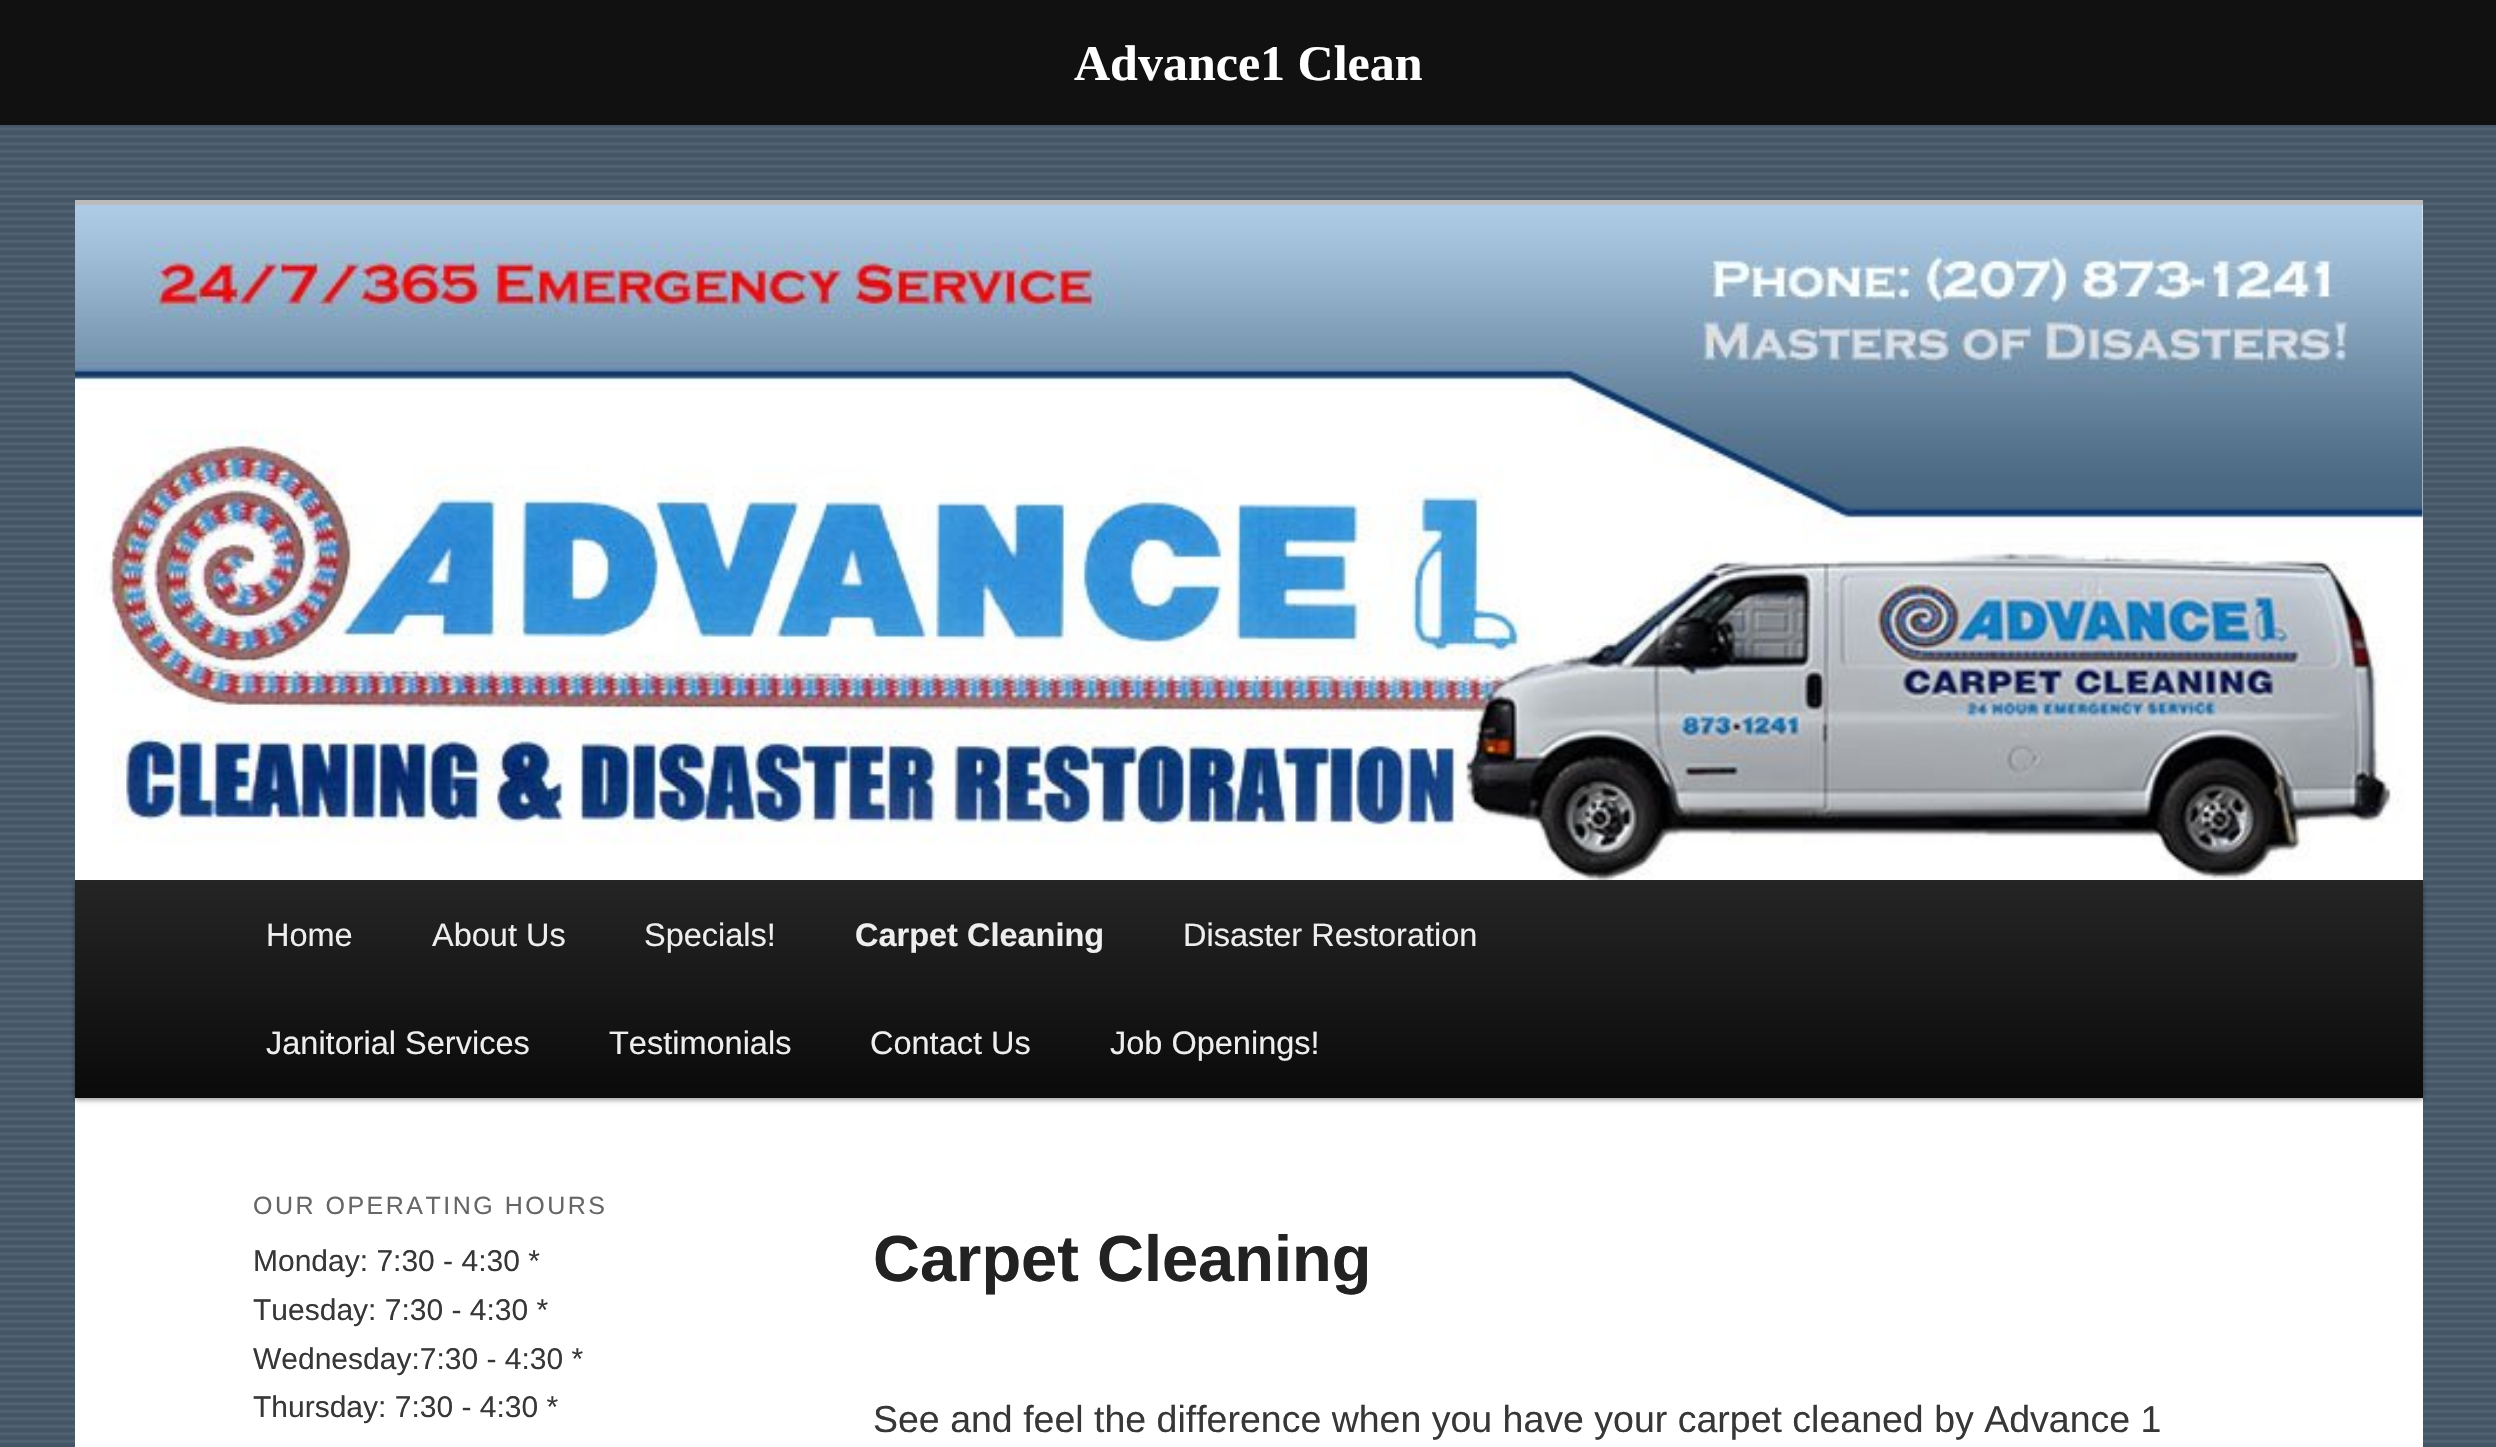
void draw(SkCanvas* canvas) {
	SkPaint fill;
	fill.setAntiAlias(true);
	auto makeFont = [&](const char* family, int weight, float size, bool italic = false) {
		SkFontStyle style(weight, SkFontStyle::kNormal_Width,
			italic ? SkFontStyle::kItalic_Slant : SkFontStyle::kUpright_Slant);
		SkFont result(fontMgr->matchFamilyStyle(family, style), size);
		result.setSubpixel(true);
		return result;
	};
	auto text = [&](const char* s, float x, float y, const SkFont& font) {
		canvas->drawString(s, x, y, font, fill);
	};
	auto spacedText = [&](const char* s, float x, float y, const SkFont& font, const SkPaint& ink, float letter, float word) {
		std::vector<SkGlyphID> glyphs(font.countText(s, strlen(s), SkTextEncoding::kUTF8));
		std::vector<float> xs(glyphs.size());
		font.textToGlyphs(s, strlen(s), SkTextEncoding::kUTF8, glyphs);
		font.getXPos(glyphs, xs, x);
		float extra = 0;
		for (size_t i = 0; i < glyphs.size(); i++) {
			xs[i] += extra;
			extra += letter + word * (glyphs[i] == font.unicharToGlyph(' '));
		}
		canvas->drawTextBlob(SkTextBlob::MakeFromPosHGlyphs(glyphs, xs, y, font), 0, 0, ink);
	};
	auto box = [&](float l, float t, float r, float b) {
		canvas->drawRect(SkRect::MakeLTRB(l, t, r, b), fill);
	};
	auto picture = [&](const char* path, float l, float t, float r, float b) {
		auto image = SkImages::DeferredFromEncodedData(SkData::MakeFromFileName(path));
		canvas->drawImageRect(image, SkRect::MakeLTRB(l, t, r, b), SkSamplingOptions());
	};
	canvas->clear(0xFFFFFFFF);
	picture("image0.png", 0, 125, 2496, 1447);
	fill.setColor(0xFF111111);
	box(0, 0, 2496, 125);
	fill.setColor(0xFFFFFFFF);
	box(75, 205, 2423, 1447);
	fill.setColor(0xFFBBBBBB);
	box(75, 200, 2423, 205);
	fill.setColor(0x66000000);
	fill.setMaskFilter(SkMaskFilter::MakeBlur(kNormal_SkBlurStyle, 2.5f));
	canvas->drawRect(SkRect::MakeLTRB(75, 883, 2423, 1100), fill);
	fill.setMaskFilter(nullptr);
	picture("image1.png", 75, 205, 2423, 880);
	{
		const SkColor colors[] = {0xFF252525, 0xFF0A0A0A};
		const float stops[] = {0, 1};
		const SkPoint ends[] = {{1249, 880}, {1249, 1098}};
		fill.setShader(SkGradientShader::MakeLinear(ends, colors, stops, 2, SkTileMode::kClamp));
		fill.setAlpha(255);
	}
	box(75, 880, 2423, 1098);
	auto font1 = makeFont("Liberation Serif", 700, 50);
	fill.setShader(nullptr);
	fill.setColor(0xFFFFFFFF);
	text("Advance1 Clean", 1074, 80, font1);
	auto font2 = makeFont("Liberation Sans", 400, 32.5f);
	fill.setColor(0xFFEEEEEE);
	text("Home", 266, 946, font2);
	text("About Us", 432, 946, font2);
	text("Specials!", 644, 946, font2);
	auto font3 = makeFont("Liberation Sans", 700, 32.5f);
	text("Carpet Cleaning", 855, 946, font3);
	text("Disaster Restoration", 1183, 946, font2);
	text("Janitorial Services", 266, 1054, font2);
	text("Testimonials", 609, 1054, font2);
	text("Contact Us", 870, 1054, font2);
	text("Job Openings!", 1110, 1054, font2);
	auto font4 = makeFont("Liberation Sans", 400, 25);
	fill.setColor(0xFF666666);
	spacedText("OUR OPERATING HOURS", 253, 1214, font4, fill, 2.5f, 0);
	auto font5 = makeFont("Liberation Sans", 400, 30);
	fill.setColor(0xFF373737);
	text("Monday: 7:30 - 4:30 *", 253, 1271, font5);
	text("Tuesday: 7:30 - 4:30 *", 253, 1320, font5);
	text("Wednesday:7:30 - 4:30 *", 253, 1369, font5);
	text("Thursday: 7:30 - 4:30 *", 253, 1417, font5);
	auto font6 = makeFont("Liberation Sans", 700, 65);
	fill.setColor(0xFF222222);
	text("Carpet Cleaning", 873, 1281, font6);
	auto font7 = makeFont("Liberation Sans", 400, 37.5f);
	fill.setColor(0xFF373737);
	text("See and feel the difference when you have your carpet cleaned by Advance 1", 873, 1432, font7);
}
